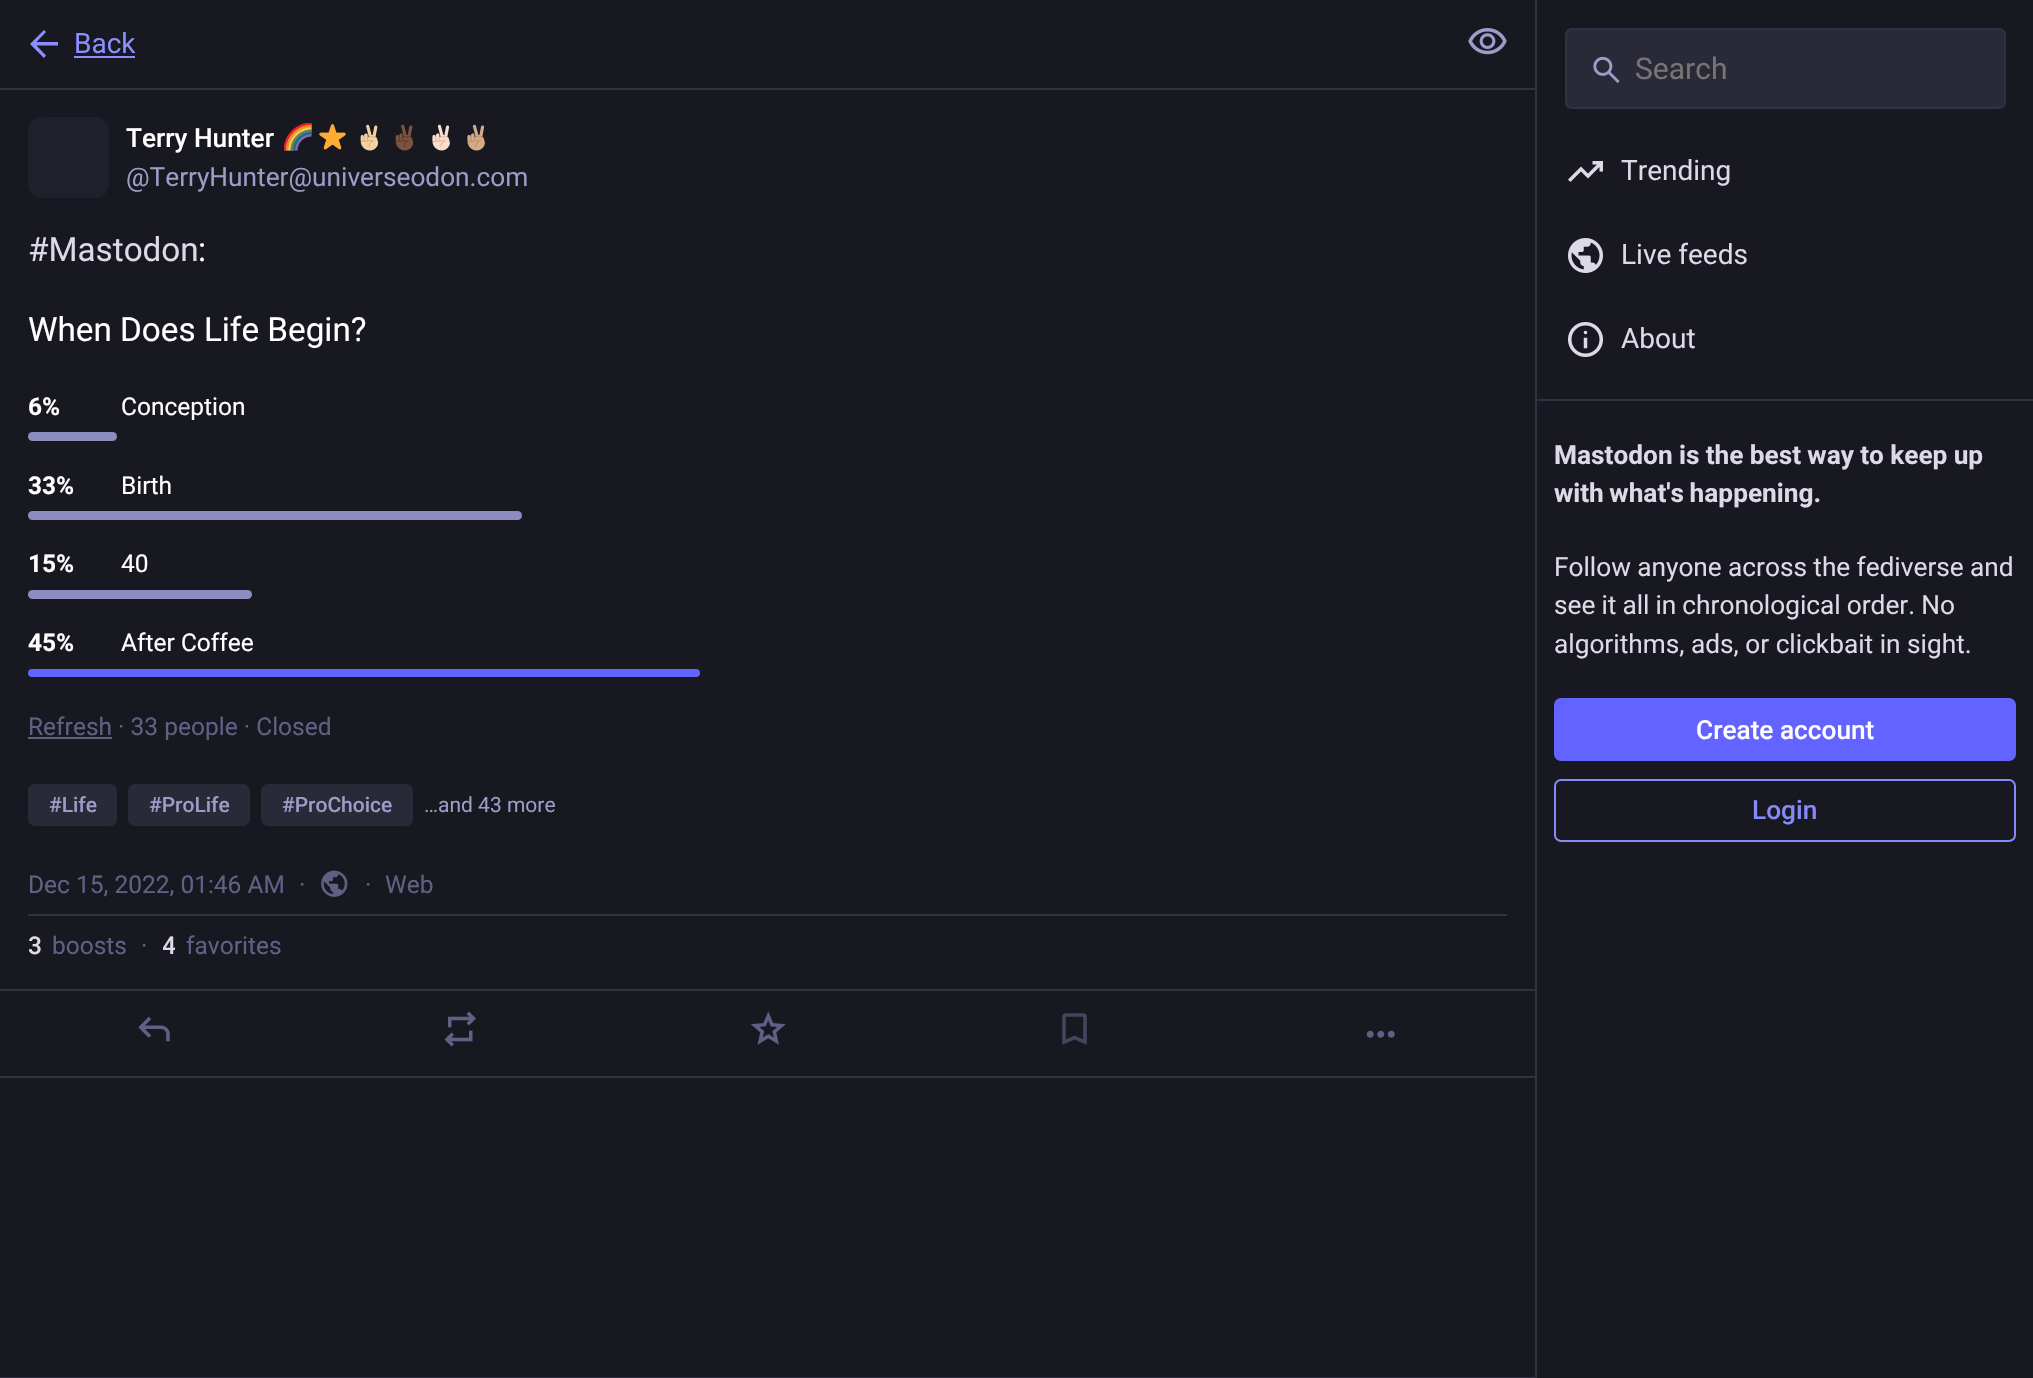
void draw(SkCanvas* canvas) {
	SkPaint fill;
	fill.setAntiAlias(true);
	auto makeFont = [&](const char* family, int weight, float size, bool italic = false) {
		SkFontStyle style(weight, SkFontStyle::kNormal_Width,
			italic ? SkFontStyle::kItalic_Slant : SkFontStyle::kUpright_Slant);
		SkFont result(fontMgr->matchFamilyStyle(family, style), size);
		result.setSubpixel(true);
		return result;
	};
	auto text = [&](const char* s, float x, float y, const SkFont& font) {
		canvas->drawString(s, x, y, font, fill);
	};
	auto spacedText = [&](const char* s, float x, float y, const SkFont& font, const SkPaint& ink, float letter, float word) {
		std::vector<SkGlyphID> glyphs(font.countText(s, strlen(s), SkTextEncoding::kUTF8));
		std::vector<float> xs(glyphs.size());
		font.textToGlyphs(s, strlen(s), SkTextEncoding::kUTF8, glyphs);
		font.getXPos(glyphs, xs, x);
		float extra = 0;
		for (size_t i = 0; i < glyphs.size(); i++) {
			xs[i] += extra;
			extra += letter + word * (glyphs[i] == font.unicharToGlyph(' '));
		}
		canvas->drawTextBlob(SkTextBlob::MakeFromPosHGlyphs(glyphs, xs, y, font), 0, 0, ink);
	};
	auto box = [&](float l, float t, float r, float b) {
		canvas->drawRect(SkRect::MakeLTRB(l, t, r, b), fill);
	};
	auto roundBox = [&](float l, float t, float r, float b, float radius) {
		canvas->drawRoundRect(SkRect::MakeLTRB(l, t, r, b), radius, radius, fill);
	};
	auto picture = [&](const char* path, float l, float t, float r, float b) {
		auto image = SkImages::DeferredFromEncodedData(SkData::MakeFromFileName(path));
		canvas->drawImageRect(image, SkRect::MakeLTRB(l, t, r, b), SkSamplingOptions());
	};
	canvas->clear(0xFF181821);
	fill.setColor(0xFF313144);
	box(0, 88, 1535, 90);
	fill.setColor(0xFF8C8DFF);
	canvas->drawPath(SkPathBuilder().moveTo(36.5f, 45.5f).lineTo(46, 55.5f).lineTo(44, 58).lineTo(30, 44).lineTo(44, 30).lineTo(46, 32).lineTo(36.5f, 42).lineTo(58, 42).lineTo(58, 45.5f).close().detach(), fill);
	box(74, 56, 135, 58);
	picture("image0.png", 1468, 28, 1507, 55);
	fill.setColor(0xFF313144);
	box(0, 1377, 1535, 1378);
	fill.setColor(0xFF20202C);
	roundBox(28, 117, 109, 198, 14);
	picture("image1.png", 284, 123, 312, 151);
	picture("image2.png", 319, 124, 346, 150);
	picture("image3.png", 360, 124, 379, 151);
	picture("image4.png", 395, 124, 414, 151);
	picture("image5.png", 432, 124, 450, 151);
	picture("image6.png", 467, 124, 485, 151);
	fill.setColor(0xFF8C8CC0);
	roundBox(28, 432, 117, 441, 4.5f);
	roundBox(28, 511, 522, 520, 4.5f);
	roundBox(28, 590, 252, 599, 4.5f);
	fill.setColor(0xFF6364FF);
	roundBox(28, 669, 700, 677, 4);
	fill.setColor(0xFF606085);
	box(28, 737, 112, 739);
	fill.setColor(0xFF292938);
	roundBox(28, 784, 117, 826, 7);
	roundBox(128, 784, 250, 826, 7);
	roundBox(261, 784, 413, 826, 7);
	fill.setColor(0xFF313144);
	box(28, 914, 1507, 916);
	picture("image7.png", 321, 870, 348, 897);
	box(0, 989, 1535, 991);
	box(0, 1076, 1535, 1078);
	picture("image8.png", 138, 1016, 170, 1042);
	picture("image9.png", 444, 1011, 476, 1047);
	picture("image10.png", 751, 1011, 786, 1045);
	picture("image11.png", 1062, 1013, 1087, 1045);
	picture("image12.png", 1366, 1030, 1395, 1038);
	box(1535, 0, 1537, 1378);
	fill.setColor(0xFF292938);
	canvas->drawRoundRect(SkRect::MakeLTRB(1566, 29, 2005, 108), 6, 6, fill);
	fill.setStyle(SkPaint::kStroke_Style);
	fill.setStrokeWidth(2);
	fill.setColor(0xFF313144);
	canvas->drawRoundRect(SkRect::MakeLTRB(1566, 29, 2005, 108), 6, 6, fill);
	picture("image13.png", 1593, 56, 1620, 83);
	picture("image14.png", 1568, 161, 1603, 182);
	picture("image15.png", 1568, 238, 1603, 273);
	picture("image16.png", 1568, 322, 1603, 357);
	fill.setStyle(SkPaint::kFill_Style);
	box(1537, 399, 2033, 401);
	fill.setColor(0xFF6364FF);
	roundBox(1554, 698, 2016, 761, 7);
	fill.setStyle(SkPaint::kStroke_Style);
	fill.setColor(0xFF858AFA);
	canvas->drawRoundRect(SkRect::MakeLTRB(1555, 780, 2015, 841), 6, 6, fill);
	auto font1 = makeFont("Roboto", 400, 28);
	fill.setStyle(SkPaint::kFill_Style);
	fill.setColor(0xFF8C8DFF);
	text("Back", 74, 53, font1);
	auto font2 = makeFont("Roboto", 500, 26.25f);
	fill.setColor(0xFFFFFFFF);
	text("Terry Hunter", 126, 147, font2);
	auto font3 = makeFont("Roboto", 400, 26.25f);
	fill.setColor(0xFF9C9CC9);
	text("@TerryHunter@universeodon.com", 126, 186, font3);
	auto font4 = makeFont("Roboto", 400, 33.25f);
	fill.setColor(0xFFDDD9E8);
	text("#Mastodon", 28, 261, font4);
	fill.setColor(0xFFFFFFFF);
	text(":", 198, 261, font4);
	text("When Does Life Begin?", 28, 341, font4);
	auto font5 = makeFont("Roboto", 700, 24.5f);
	text("6%", 28, 415, font5);
	auto font6 = makeFont("Roboto", 400, 24.5f);
	text("Conception", 121, 415, font6);
	text("33%", 28, 494, font5);
	text("Birth", 121, 494, font6);
	text("15%", 28, 572, font5);
	text("40", 121, 572, font6);
	text("45%", 28, 651, font5);
	text("After Coffee", 121, 651, font6);
	fill.setColor(0xFF606085);
	text("Refresh · 33 people · Closed", 28, 735, font6);
	auto font7 = makeFont("Roboto", 500, 21);
	fill.setColor(0xFF9C9CC9);
	text("#Life", 49, 812, font7);
	text("#ProLife", 149, 812, font7);
	text("#ProChoice", 282, 812, font7);
	auto font8 = makeFont("Roboto", 400, 21);
	text("…and 43 more", 424, 812, font8);
	fill.setColor(0xFF606085);
	text("Dec 15, 2022, 01:46 AM", 28, 893, font6);
	text("·", 299, 893, font6);
	text("·", 365, 893, font6);
	text("Web", 385, 893, font6);
	auto font9 = makeFont("Roboto", 500, 24.5f);
	fill.setColor(0xFFDDD9E8);
	text("3", 28, 954, font9);
	fill.setColor(0xFF606085);
	text("boosts", 52, 954, font6);
	text("·", 141, 954, font6);
	canvas->save();
	canvas->clipRect(SkRect::MakeLTRB(163, 929, 175, 961));
	fill.setColor(0xFFDDD9E8);
	text("4", 162, 954, font9);
	canvas->restore();
	fill.setColor(0xFF606085);
	text("favorites", 186, 954, font6);
	auto font10 = makeFont("Roboto", 400, 30);
	fill.setColor(0xFF757575);
	text("Search", 1635, 79, font10);
	fill.setColor(0xFFDDD9E8);
	text("Trending", 1621, 180, font1);
	text("Live feeds", 1621, 264, font1);
	text("About", 1621, 348, font1);
	auto font11 = makeFont("Roboto", 700, 26.25f);
	spacedText("Mastodon is the best way to keep up", 1554, 464, font11, fill, 0, -0.25f);
	spacedText("with what's happening.", 1554, 502, font11, fill, 0, -1);
	spacedText("Follow anyone across the fediverse and", 1554, 576, font3, fill, 0, -0.25f);
	spacedText("see it all in chronological order. No", 1554, 614, font3, fill, 0, -0.5f);
	text("algorithms, ads, or clickbait in sight.", 1554, 653, font3);
	fill.setColor(0xFFFFFFFF);
	text("Create account", 1696, 739, font2);
	fill.setColor(0xFF858AFA);
	text("Login", 1752, 819, font2);
}
